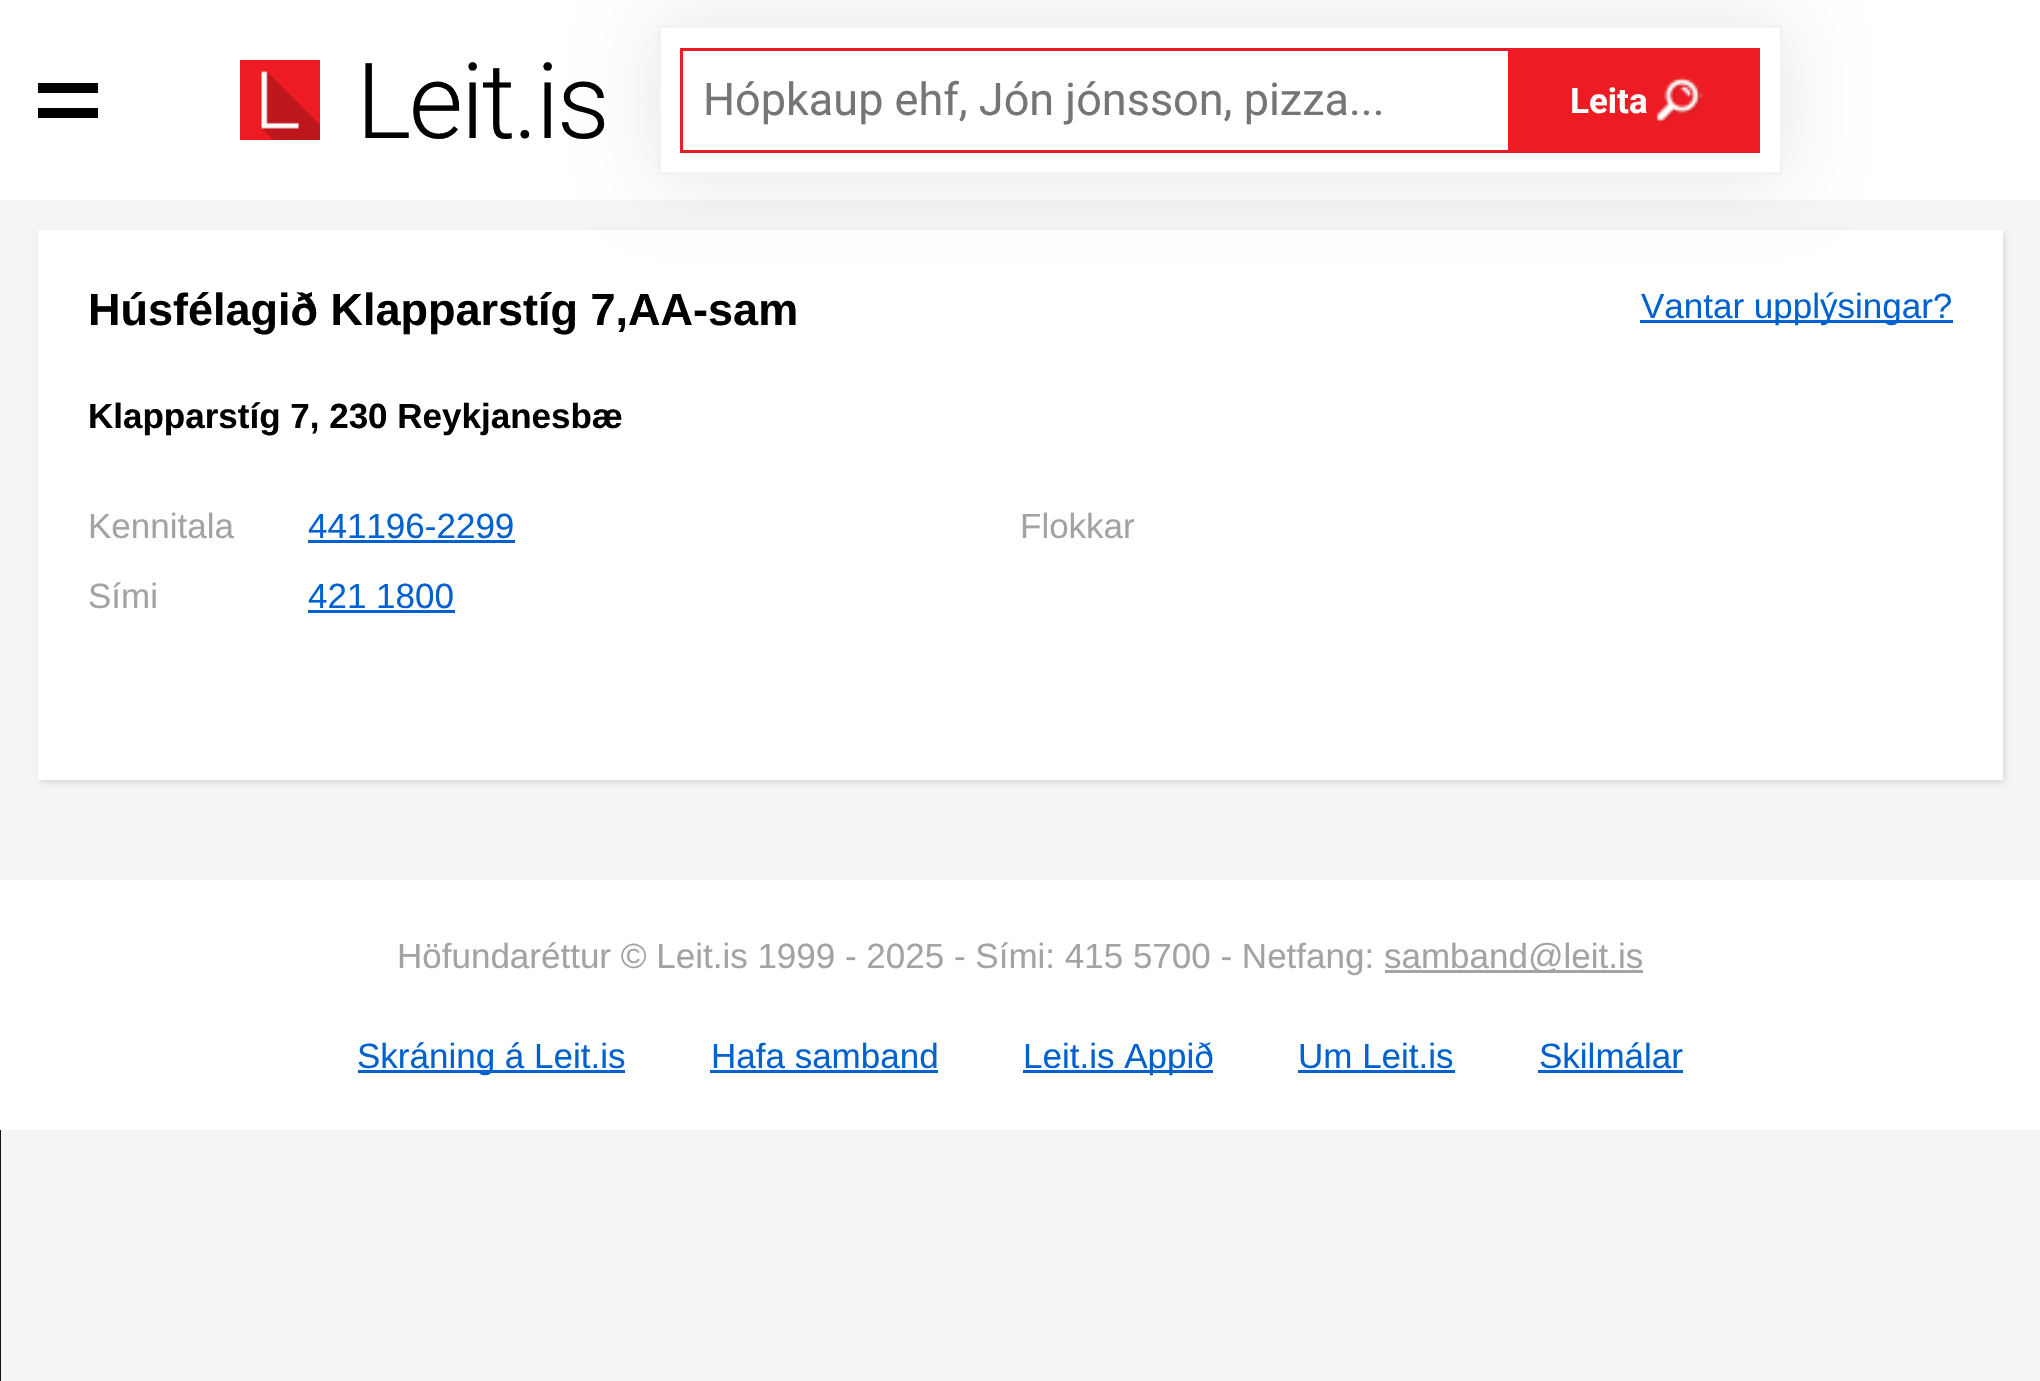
void draw(SkCanvas* canvas) {
	SkPaint fill;
	fill.setAntiAlias(true);
	auto makeFont = [&](const char* family, int weight, float size, bool italic = false) {
		SkFontStyle style(weight, SkFontStyle::kNormal_Width,
			italic ? SkFontStyle::kItalic_Slant : SkFontStyle::kUpright_Slant);
		SkFont result(fontMgr->matchFamilyStyle(family, style), size);
		result.setSubpixel(true);
		return result;
	};
	auto text = [&](const char* s, float x, float y, const SkFont& font) {
		canvas->drawString(s, x, y, font, fill);
	};
	auto spacedText = [&](const char* s, float x, float y, const SkFont& font, const SkPaint& ink, float letter, float word) {
		std::vector<SkGlyphID> glyphs(font.countText(s, strlen(s), SkTextEncoding::kUTF8));
		std::vector<float> xs(glyphs.size());
		font.textToGlyphs(s, strlen(s), SkTextEncoding::kUTF8, glyphs);
		font.getXPos(glyphs, xs, x);
		float extra = 0;
		for (size_t i = 0; i < glyphs.size(); i++) {
			xs[i] += extra;
			extra += letter + word * (glyphs[i] == font.unicharToGlyph(' '));
		}
		canvas->drawTextBlob(SkTextBlob::MakeFromPosHGlyphs(glyphs, xs, y, font), 0, 0, ink);
	};
	auto box = [&](float l, float t, float r, float b) {
		canvas->drawRect(SkRect::MakeLTRB(l, t, r, b), fill);
	};
	auto picture = [&](const char* path, float l, float t, float r, float b) {
		auto image = SkImages::DeferredFromEncodedData(SkData::MakeFromFileName(path));
		canvas->drawImageRect(image, SkRect::MakeLTRB(l, t, r, b), SkSamplingOptions());
	};
	canvas->clear(0xFFF5F5F5);
	fill.setColor(0xFFFFFFFF);
	box(0, 0, 2040, 200);
	fill.setColor(0xFF000000);
	box(38, 83, 98, 93);
	box(38, 108, 98, 118);
	picture("image0.png", 240, 60, 320, 140);
	fill.setColor(0x1A000000);
	fill.setMaskFilter(SkMaskFilter::MakeBlur(kNormal_SkBlurStyle, 2.5f));
	canvas->drawRect(SkRect::MakeLTRB(40, 233, 2005, 783), fill);
	fill.setMaskFilter(nullptr);
	fill.setColor(0xFFFFFFFF);
	box(38, 230, 2003, 780);
	fill.setColor(0x1A000000);
	fill.setMaskFilter(SkMaskFilter::MakeBlur(kNormal_SkBlurStyle, 37.5f));
	canvas->drawRect(SkRect::MakeLTRB(658, 25, 1783, 175), fill);
	fill.setMaskFilter(nullptr);
	fill.setColor(0xFFFFFFFF);
	canvas->drawRect(SkRect::MakeLTRB(659.5f, 26.5f, 1781.5f, 173.5f), fill);
	fill.setStyle(SkPaint::kStroke_Style);
	fill.setStrokeWidth(3);
	fill.setColor(0xFFF2F2F2);
	canvas->drawRect(SkRect::MakeLTRB(659.5f, 26.5f, 1781.5f, 173.5f), fill);
	fill.setColor(0xFFED1C24);
	canvas->drawRect(SkRect::MakeLTRB(681.5f, 49.5f, 1758.5f, 151.5f), fill);
	fill.setStyle(SkPaint::kFill_Style);
	box(1508, 51, 1757, 150);
	picture("image1.png", 1656, 77, 1703, 124);
	fill.setColor(0xFF0061CF);
	box(1640, 320, 1953, 323);
	box(308, 540, 515, 543);
	box(308, 610, 455, 613);
	fill.setColor(0xFF141414);
	box(0, 1130, 1, 1381);
	fill.setColor(0xFFFFFFFF);
	box(0, 880, 2040, 1130);
	fill.setColor(0xFFA3A3A3);
	box(1385, 970, 1643, 973);
	fill.setColor(0xFF0061CF);
	box(358, 1070, 625, 1073);
	box(710, 1070, 938, 1073);
	box(1023, 1070, 1213, 1073);
	box(1298, 1070, 1455, 1073);
	box(1538, 1070, 1683, 1073);
	auto font1 = makeFont("Roboto", 300, 105);
	fill.setColor(0xFF000000);
	spacedText("Leit.is", 356, 138, font1, fill, -2.5f, 0);
	auto font2 = makeFont("Roboto", 400, 45);
	fill.setColor(0xFF757575);
	text("Hópkaup ehf, Jón jónsson, pizza...", 703, 115, font2);
	auto font3 = makeFont("Roboto", 700, 35);
	fill.setColor(0xFFFFFFFF);
	text("Leita", 1570, 113, font3);
	auto font4 = makeFont("Liberation Sans", 700, 45);
	fill.setColor(0xFF000000);
	text("Húsfélagið Klapparstíg 7,AA-sam", 88, 325, font4);
	auto font5 = makeFont("Liberation Sans", 400, 35);
	fill.setColor(0xFF0061CF);
	text("Vantar upplýsingar?", 1641, 318, font5);
	auto font6 = makeFont("Liberation Sans", 700, 35);
	fill.setColor(0xFF000000);
	text("Klapparstíg 7, 230 Reykjanesbæ", 88, 428, font6);
	fill.setColor(0xFFA3A3A3);
	text("Kennitala", 88, 538, font5);
	fill.setColor(0xFF0061CF);
	text("441196-2299", 308, 538, font5);
	fill.setColor(0xFFA3A3A3);
	text("Sími", 88, 608, font5);
	fill.setColor(0xFF0061CF);
	text("421 1800", 308, 608, font5);
	fill.setColor(0xFFA3A3A3);
	text("Flokkar", 1020, 538, font5);
	text("Höfundaréttur © Leit.is 1999 - 2025 - Sími: 415 5700 - Netfang:", 397, 968, font5);
	text("samband@leit.is", 1384, 968, font5);
	fill.setColor(0xFF0061CF);
	text("Skráning á Leit.is", 357, 1068, font5);
	text("Hafa samband", 711, 1068, font5);
	text("Leit.is Appið", 1023, 1068, font5);
	text("Um Leit.is", 1298, 1068, font5);
	text("Skilmálar", 1539, 1068, font5);
}
